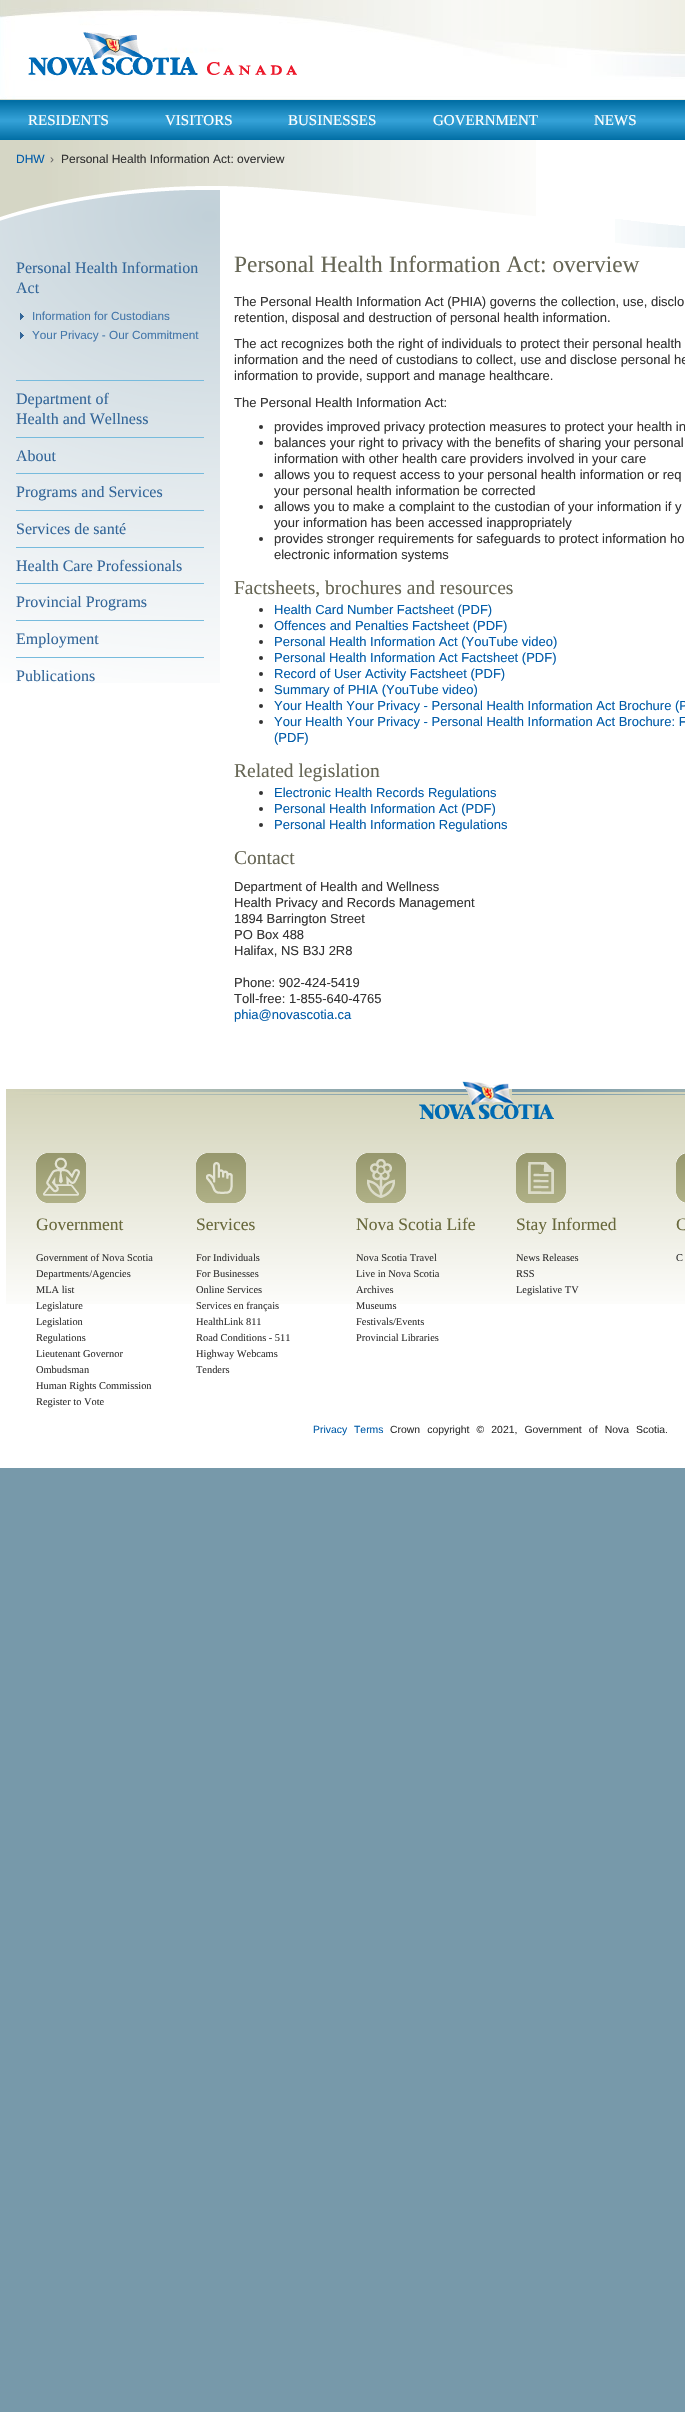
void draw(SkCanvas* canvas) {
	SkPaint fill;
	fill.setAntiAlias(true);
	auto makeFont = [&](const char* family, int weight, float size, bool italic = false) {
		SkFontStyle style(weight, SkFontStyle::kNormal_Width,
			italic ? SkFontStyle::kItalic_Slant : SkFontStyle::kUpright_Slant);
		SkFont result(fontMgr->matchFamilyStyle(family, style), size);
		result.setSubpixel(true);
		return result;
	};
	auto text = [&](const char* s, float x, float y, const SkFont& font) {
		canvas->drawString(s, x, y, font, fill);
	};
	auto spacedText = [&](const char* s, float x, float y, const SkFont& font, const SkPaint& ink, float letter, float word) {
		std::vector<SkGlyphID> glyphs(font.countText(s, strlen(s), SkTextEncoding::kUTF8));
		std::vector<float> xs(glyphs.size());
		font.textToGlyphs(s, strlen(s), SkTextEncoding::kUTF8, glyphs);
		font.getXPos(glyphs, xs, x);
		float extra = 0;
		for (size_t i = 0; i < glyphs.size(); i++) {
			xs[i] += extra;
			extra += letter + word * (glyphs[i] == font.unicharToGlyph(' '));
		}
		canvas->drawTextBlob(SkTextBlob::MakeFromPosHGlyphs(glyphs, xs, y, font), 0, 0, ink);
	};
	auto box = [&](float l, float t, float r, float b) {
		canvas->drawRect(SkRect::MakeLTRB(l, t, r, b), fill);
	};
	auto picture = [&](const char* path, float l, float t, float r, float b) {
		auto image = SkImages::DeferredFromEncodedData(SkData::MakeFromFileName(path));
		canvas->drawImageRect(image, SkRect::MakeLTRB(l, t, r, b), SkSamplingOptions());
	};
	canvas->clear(0xFF7799AA);
	fill.setColor(0xFFFFFFFF);
	box(0, 140, 685, 1468);
	picture("image0.png", 0, 0, 685, 100);
	picture("image1.png", 28, 32, 297, 76);
	fill.setColor(0xFF0088CC);
	box(0, 100, 685, 140);
	picture("image2.png", 0, 100, 685, 140);
	picture("image3.png", 0, 140, 536, 217);
	picture("image4.png", 615, 219, 685, 248);
	picture("image5.png", 0, 190, 220, 683);
	picture("image6.png", 20, 313, 24, 320);
	picture("image7.png", 20, 332, 24, 339);
	fill.setColor(0xFF77BBDD);
	box(16, 380, 204, 381);
	box(16, 437, 204, 438);
	box(16, 473, 204, 474);
	box(16, 510, 204, 511);
	box(16, 547, 204, 548);
	box(16, 583, 204, 584);
	box(16, 620, 204, 621);
	box(16, 657, 204, 658);
	fill.setColor(0xFF333333);
	canvas->drawCircle(261, 427, 2, fill);
	canvas->drawCircle(261, 443, 2, fill);
	canvas->drawCircle(261, 475, 2, fill);
	canvas->drawCircle(261, 507, 2, fill);
	canvas->drawCircle(261, 539, 2, fill);
	canvas->drawCircle(261, 610, 2, fill);
	canvas->drawCircle(261, 626, 2, fill);
	canvas->drawCircle(261, 642, 2, fill);
	canvas->drawCircle(261, 658, 2, fill);
	canvas->drawCircle(261, 674, 2, fill);
	canvas->drawCircle(261, 690, 2, fill);
	canvas->drawCircle(261, 706, 2, fill);
	canvas->drawCircle(261, 722, 2, fill);
	canvas->drawCircle(261, 793, 2, fill);
	canvas->drawCircle(261, 809, 2, fill);
	canvas->drawCircle(261, 825, 2, fill);
	picture("image8.png", 6, 1081, 685, 1304);
	picture("image9.png", 36, 1153, 86, 1203);
	picture("image10.png", 196, 1153, 246, 1203);
	picture("image11.png", 356, 1153, 406, 1203);
	picture("image12.png", 516, 1153, 566, 1203);
	picture("image13.png", 676, 1153, 685, 1203);
	auto font1 = makeFont("Liberation Serif", 400, 15);
	fill.setColor(0xFFFFFFFF);
	text("RESIDENTS", 28, 125, font1);
	text("VISITORS", 165, 125, font1);
	text("BUSINESSES", 288, 125, font1);
	text("GOVERNMENT", 433, 125, font1);
	text("NEWS", 594, 125, font1);
	auto font2 = makeFont("Liberation Sans", 400, 12);
	fill.setColor(0xFF015CA9);
	text("DHW", 16, 163, font2);
	fill.setColor(0xFF666666);
	text("›", 50, 163, font2);
	fill.setColor(0xFF333333);
	text("Personal Health Information Act: overview", 61, 163, font2);
	auto font3 = makeFont("Liberation Serif", 400, 16);
	fill.setColor(0xFF336699);
	text("Personal Health Information", 16, 273, font3);
	text("Act", 16, 293, font3);
	auto font4 = makeFont("Liberation Sans", 400, 11.75f);
	fill.setColor(0xFF4477AA);
	text("Information for Custodians", 32, 320, font4);
	text("Your Privacy - Our Commitment", 32, 339, font4);
	fill.setColor(0xFF336699);
	text("Department of", 16, 404, font3);
	text("Health and Wellness", 16, 424, font3);
	text("About", 16, 461, font3);
	text("Programs and Services", 16, 497, font3);
	text("Services de santé", 16, 534, font3);
	text("Health Care Professionals", 16, 571, font3);
	text("Provincial Programs", 16, 607, font3);
	text("Employment", 16, 644, font3);
	text("Publications", 16, 681, font3);
	auto font5 = makeFont("Liberation Serif", 400, 23.4f);
	fill.setColor(0xFF666655);
	text("Personal Health Information Act: overview", 234, 272, font5);
	auto font6 = makeFont("Liberation Sans", 400, 13);
	fill.setColor(0xFF333333);
	text("The Personal Health Information Act (PHIA) governs the collection, use, disclo", 234, 306, font6);
	text("retention, disposal and destruction of personal health information.", 234, 322, font6);
	text("The act recognizes both the right of individuals to protect their personal health", 234, 348, font6);
	text("information and the need of custodians to collect, use and disclose personal he", 234, 364, font6);
	text("information to provide, support and manage healthcare.", 234, 380, font6);
	text("The Personal Health Information Act:", 234, 407, font6);
	text("provides improved privacy protection measures to protect your health in", 274, 431, font6);
	text("balances your right to privacy with the benefits of sharing your personal", 274, 447, font6);
	text("information with other health care providers involved in your care", 274, 463, font6);
	text("allows you to request access to your personal health information or req", 274, 479, font6);
	text("your personal health information be corrected", 274, 495, font6);
	text("allows you to make a complaint to the custodian of your information if y", 274, 511, font6);
	text("your information has been accessed inappropriately", 274, 527, font6);
	text("provides stronger requirements for safeguards to protect information ho", 274, 543, font6);
	text("electronic information systems", 274, 559, font6);
	auto font7 = makeFont("Liberation Serif", 400, 19.5f);
	fill.setColor(0xFF666655);
	text("Factsheets, brochures and resources", 234, 594, font7);
	fill.setColor(0xFF015CA9);
	text("Health Card Number Factsheet (PDF)", 274, 614, font6);
	text("Offences and Penalties Factsheet (PDF)", 274, 630, font6);
	text("Personal Health Information Act (YouTube video)", 274, 646, font6);
	text("Personal Health Information Act Factsheet (PDF)", 274, 662, font6);
	text("Record of User Activity Factsheet (PDF)", 274, 678, font6);
	text("Summary of PHIA (YouTube video)", 274, 694, font6);
	text("Your Health Your Privacy - Personal Health Information Act Brochure (P", 274, 710, font6);
	text("Your Health Your Privacy - Personal Health Information Act Brochure: F", 274, 726, font6);
	text("(PDF)", 274, 742, font6);
	fill.setColor(0xFF666655);
	text("Related legislation", 234, 777, font7);
	fill.setColor(0xFF015CA9);
	text("Electronic Health Records Regulations", 274, 797, font6);
	text("Personal Health Information Act (PDF)", 274, 813, font6);
	text("Personal Health Information Regulations", 274, 829, font6);
	fill.setColor(0xFF666655);
	text("Contact", 234, 864, font7);
	fill.setColor(0xFF333333);
	text("Department of Health and Wellness", 234, 891, font6);
	text("Health Privacy and Records Management", 234, 907, font6);
	text("1894 Barrington Street", 234, 923, font6);
	text("PO Box 488", 234, 939, font6);
	text("Halifax, NS B3J 2R8", 234, 955, font6);
	text("Phone: 902-424-5419", 234, 987, font6);
	text("Toll-free: 1-855-640-4765", 234, 1003, font6);
	fill.setColor(0xFF015CA9);
	text("phia@novascotia.ca", 234, 1019, font6);
	auto font8 = makeFont("Liberation Serif", 400, 17.5f);
	fill.setColor(0xFF69693C);
	text("Government", 36, 1230, font8);
	auto font9 = makeFont("Liberation Serif", 400, 10.4f);
	fill.setColor(0xFF333333);
	text("Government of Nova Scotia", 36, 1261, font9);
	text("Departments/Agencies", 36, 1277, font9);
	text("MLA list", 36, 1293, font9);
	text("Legislature", 36, 1309, font9);
	text("Legislation", 36, 1325, font9);
	text("Regulations", 36, 1341, font9);
	text("Lieutenant Governor", 36, 1357, font9);
	text("Ombudsman", 36, 1373, font9);
	text("Human Rights Commission", 36, 1389, font9);
	text("Register to Vote", 36, 1405, font9);
	fill.setColor(0xFF69693C);
	text("Services", 196, 1230, font8);
	fill.setColor(0xFF333333);
	text("For Individuals", 196, 1261, font9);
	text("For Businesses", 196, 1277, font9);
	text("Online Services", 196, 1293, font9);
	text("Services en français", 196, 1309, font9);
	text("HealthLink 811", 196, 1325, font9);
	text("Road Conditions - 511", 196, 1341, font9);
	text("Highway Webcams", 196, 1357, font9);
	text("Tenders", 196, 1373, font9);
	fill.setColor(0xFF69693C);
	text("Nova Scotia Life", 356, 1230, font8);
	fill.setColor(0xFF333333);
	text("Nova Scotia Travel", 356, 1261, font9);
	text("Live in Nova Scotia", 356, 1277, font9);
	text("Archives", 356, 1293, font9);
	text("Museums", 356, 1309, font9);
	text("Festivals/Events", 356, 1325, font9);
	text("Provincial Libraries", 356, 1341, font9);
	fill.setColor(0xFF69693C);
	text("Stay Informed", 516, 1230, font8);
	fill.setColor(0xFF333333);
	text("News Releases", 516, 1261, font9);
	text("RSS", 516, 1277, font9);
	text("Legislative TV", 516, 1293, font9);
	fill.setColor(0xFF69693C);
	text("C", 676, 1230, font8);
	fill.setColor(0xFF333333);
	text("C", 676, 1261, font9);
	auto font10 = makeFont("Liberation Sans", 400, 10.4f);
	fill.setColor(0xFF015CA9);
	text("Privacy", 313, 1433, font10);
	text("Terms", 354, 1433, font10);
	fill.setColor(0xFF333333);
	spacedText("Crown copyright © 2021, Government of Nova Scotia.", 390, 1433, font10, fill, 0, 4.25f);
}
